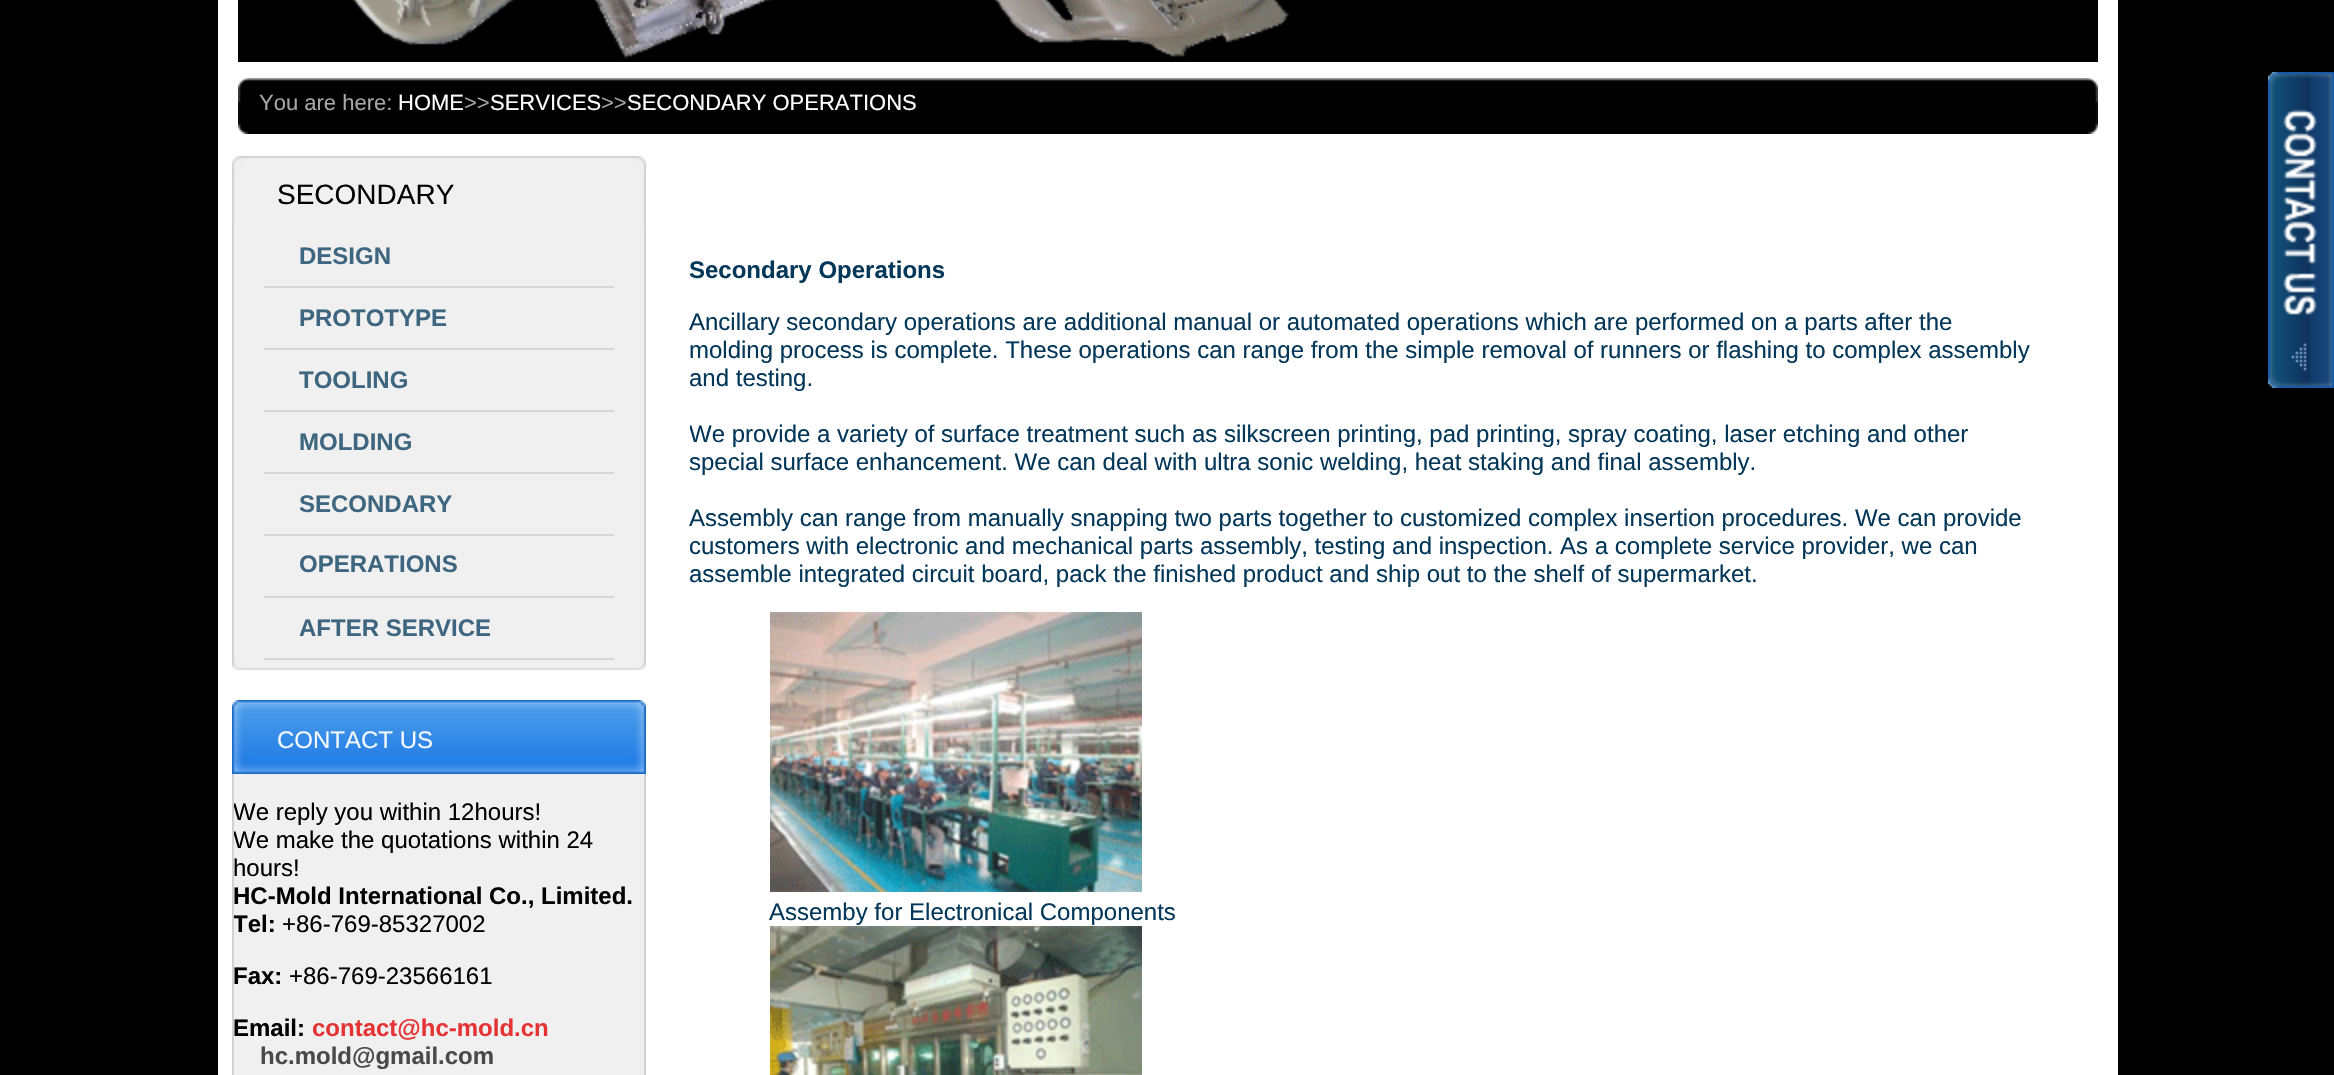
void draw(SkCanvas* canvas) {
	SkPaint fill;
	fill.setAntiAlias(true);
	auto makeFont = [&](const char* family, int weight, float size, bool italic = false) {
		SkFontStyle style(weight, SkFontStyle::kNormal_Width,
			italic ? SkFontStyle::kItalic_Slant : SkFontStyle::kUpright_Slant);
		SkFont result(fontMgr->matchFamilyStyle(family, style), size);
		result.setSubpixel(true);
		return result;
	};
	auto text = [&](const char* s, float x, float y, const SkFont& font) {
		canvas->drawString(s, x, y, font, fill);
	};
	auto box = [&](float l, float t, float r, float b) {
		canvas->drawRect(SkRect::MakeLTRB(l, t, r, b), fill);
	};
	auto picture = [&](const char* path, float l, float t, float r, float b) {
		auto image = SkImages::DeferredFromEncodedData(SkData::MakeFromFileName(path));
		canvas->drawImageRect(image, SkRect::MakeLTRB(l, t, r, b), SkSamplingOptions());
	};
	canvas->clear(0xFF000000);
	fill.setColor(0xFFFFFFFF);
	box(218, 0, 2118, 1075);
	picture("image0.png", 238, 0, 2098, 62);
	picture("image1.png", 248, 78, 2087, 134);
	picture("image2.png", 238, 78, 248, 134);
	picture("image3.png", 2087, 78, 2098, 134);
	picture("image4.png", 232, 156, 646, 226);
	fill.setColor(0xFFF0F0F0);
	box(234, 226, 644, 660);
	fill.setColor(0xFFD1D1D1);
	box(644, 226, 646, 660);
	box(232, 226, 234, 660);
	fill.setColor(0xFFD7D7D7);
	box(264, 286, 614, 288);
	box(264, 348, 614, 350);
	box(264, 410, 614, 412);
	box(264, 472, 614, 474);
	box(264, 534, 614, 536);
	box(264, 596, 614, 598);
	box(264, 658, 614, 660);
	picture("image5.png", 232, 660, 646, 670);
	picture("image6.png", 232, 700, 646, 774);
	fill.setColor(0xFFF0F0F0);
	box(234, 774, 644, 1075);
	fill.setColor(0xFFD1D1D1);
	box(644, 774, 646, 1075);
	box(232, 774, 234, 1075);
	picture("image7.png", 770, 612, 1142, 892);
	picture("image8.png", 770, 926, 1142, 1075);
	picture("image9.png", 2268, 72, 2334, 388);
	auto font1 = makeFont("Liberation Sans", 400, 22);
	fill.setColor(0xFFABA6A6);
	text("You are here:", 259, 110, font1);
	fill.setColor(0xFFFFFFFF);
	text("HOME", 398, 110, font1);
	fill.setColor(0xFFABA6A6);
	text(">>", 464, 110, font1);
	fill.setColor(0xFFFFFFFF);
	text("SERVICES", 490, 110, font1);
	fill.setColor(0xFFABA6A6);
	text(">>", 601, 110, font1);
	fill.setColor(0xFFFFFFFF);
	text("SECONDARY OPERATIONS", 627, 110, font1);
	auto font2 = makeFont("Liberation Sans", 400, 28);
	fill.setColor(0xFF000000);
	text("SECONDARY", 277, 204, font2);
	auto font3 = makeFont("Liberation Sans", 700, 24);
	fill.setColor(0xFF3E6680);
	text("DESIGN", 299, 264, font3);
	text("PROTOTYPE", 299, 326, font3);
	text("TOOLING", 299, 388, font3);
	text("MOLDING", 299, 450, font3);
	text("SECONDARY", 299, 512, font3);
	text("OPERATIONS", 299, 572, font3);
	text("AFTER SERVICE", 299, 636, font3);
	auto font4 = makeFont("Liberation Sans", 400, 24);
	fill.setColor(0xFFF3F8FE);
	text("CONTACT US", 277, 748, font4);
	canvas->save();
	canvas->clipRect(SkRect::MakeLTRB(234, 774, 644, 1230));
	fill.setColor(0xFF000000);
	text("We reply you within 12hours!", 233, 820, font4);
	text("We make the quotations within 24", 233, 848, font4);
	canvas->restore();
	text("hours!", 233, 876, font4);
	text("HC-Mold International Co., Limited.", 233, 904, font3);
	canvas->save();
	canvas->clipRect(SkRect::MakeLTRB(234, 774, 644, 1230));
	text("Tel:", 233, 932, font3);
	canvas->restore();
	text("+86-769-85327002", 282, 932, font4);
	text("Fax:", 233, 984, font3);
	text("+86-769-23566161", 289, 984, font4);
	text("Email:", 233, 1036, font3);
	fill.setColor(0xFFE53333);
	text("contact@hc-mold.cn", 312, 1036, font3);
	fill.setColor(0xFF494949);
	text("hc.mold@gmail.com", 260, 1064, font3);
	fill.setColor(0xFF033759);
	text("Secondary Operations", 689, 278, font3);
	text("Ancillary secondary operations are additional manual or automated operations which are performed on a parts after the", 689, 330, font4);
	text("molding process is complete. These operations can range from the simple removal of runners or flashing to complex assembly", 689, 358, font4);
	text("and testing.", 689, 386, font4);
	canvas->save();
	canvas->clipRect(SkRect::MakeLTRB(690, 232, 2038, 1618));
	text("We provide a variety of surface treatment such as silkscreen printing, pad printing, spray coating, laser etching and other", 689, 442, font4);
	canvas->restore();
	text("special surface enhancement. We can deal with ultra sonic welding, heat staking and final assembly.", 689, 470, font4);
	text("Assembly can range from manually snapping two parts together to customized complex insertion procedures. We can provide", 689, 526, font4);
	text("customers with electronic and mechanical parts assembly, testing and inspection. As a complete service provider, we can", 689, 554, font4);
	text("assemble integrated circuit board, pack the finished product and ship out to the shelf of supermarket.", 689, 582, font4);
	text("Assemby for Electronical Components", 769, 920, font4);
}
